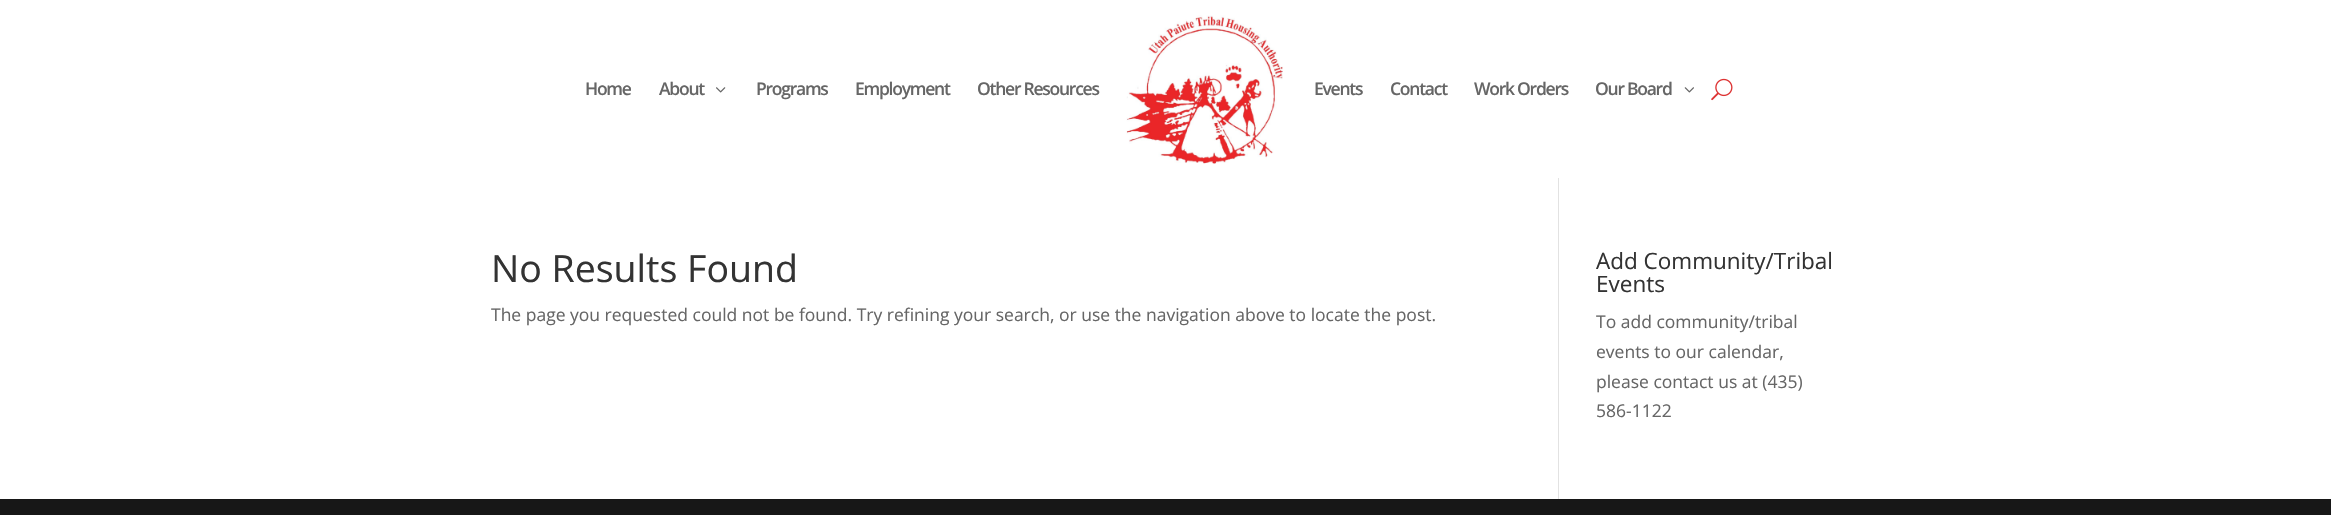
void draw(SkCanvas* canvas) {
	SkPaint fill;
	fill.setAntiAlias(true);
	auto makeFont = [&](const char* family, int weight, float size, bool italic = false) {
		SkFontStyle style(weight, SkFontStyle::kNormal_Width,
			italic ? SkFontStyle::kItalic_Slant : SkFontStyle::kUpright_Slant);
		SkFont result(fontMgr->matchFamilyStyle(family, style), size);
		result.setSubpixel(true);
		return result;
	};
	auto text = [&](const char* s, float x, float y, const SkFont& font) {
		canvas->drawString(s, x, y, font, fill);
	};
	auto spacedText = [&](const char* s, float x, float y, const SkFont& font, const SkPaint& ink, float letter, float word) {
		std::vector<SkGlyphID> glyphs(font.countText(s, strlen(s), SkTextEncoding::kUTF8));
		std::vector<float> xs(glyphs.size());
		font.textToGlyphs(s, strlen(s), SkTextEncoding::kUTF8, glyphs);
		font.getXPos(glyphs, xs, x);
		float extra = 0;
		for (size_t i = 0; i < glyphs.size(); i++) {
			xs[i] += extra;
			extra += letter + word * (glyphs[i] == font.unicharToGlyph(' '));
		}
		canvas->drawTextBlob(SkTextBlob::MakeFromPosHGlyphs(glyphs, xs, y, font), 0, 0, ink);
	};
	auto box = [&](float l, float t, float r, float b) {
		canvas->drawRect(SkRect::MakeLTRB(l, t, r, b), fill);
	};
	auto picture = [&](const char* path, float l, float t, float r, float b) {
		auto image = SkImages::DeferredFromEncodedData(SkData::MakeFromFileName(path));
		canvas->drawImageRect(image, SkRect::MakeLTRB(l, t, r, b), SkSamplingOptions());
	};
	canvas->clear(0xFFFFFFFF);
	picture("image0.png", 716, 87, 726, 93);
	picture("image1.png", 1126, 15, 1283, 164);
	picture("image2.png", 1684, 87, 1694, 93);
	picture("image3.png", 1711, 78, 1733, 101);
	fill.setColor(0xFFE2E2E2);
	box(1558, 178, 1559, 499);
	fill.setColor(0xFF171717);
	box(0, 499, 2331, 515);
	auto font1 = makeFont("Open Sans", 600, 17.5f);
	fill.setColor(0xFF666666);
	spacedText("Home", 585, 95, font1, fill, -1.25f, 0);
	spacedText("About", 659, 95, font1, fill, -1.25f, 0);
	spacedText("Programs", 756, 95, font1, fill, -1.25f, 0);
	spacedText("Employment", 855, 95, font1, fill, -1.25f, 0);
	spacedText("Other Resources", 977, 95, font1, fill, -1.25f, 0);
	spacedText("Events", 1314, 95, font1, fill, -1.25f, 0);
	spacedText("Contact", 1390, 95, font1, fill, -1.25f, 0);
	spacedText("Work Orders", 1474, 95, font1, fill, -1.25f, 0);
	spacedText("Our Board", 1595, 95, font1, fill, -1.25f, 0);
	auto font2 = makeFont("Open Sans", 400, 37.5f);
	fill.setColor(0xFF333333);
	text("No Results Found", 491, 282, font2);
	auto font3 = makeFont("Open Sans", 400, 17.5f);
	fill.setColor(0xFF666666);
	text("The page you requested could not be found. Try refining your search, or use the navigation above to locate the post.", 491, 321, font3);
	auto font4 = makeFont("Open Sans", 400, 22.5f);
	fill.setColor(0xFF333333);
	text("Add Community/Tribal", 1596, 269, font4);
	text("Events", 1596, 292, font4);
	fill.setColor(0xFF666666);
	text("To add community/tribal", 1596, 328, font3);
	text("events to our calendar,", 1596, 358, font3);
	text("please contact us at (435)", 1596, 388, font3);
	text("586-1122", 1596, 417, font3);
}
